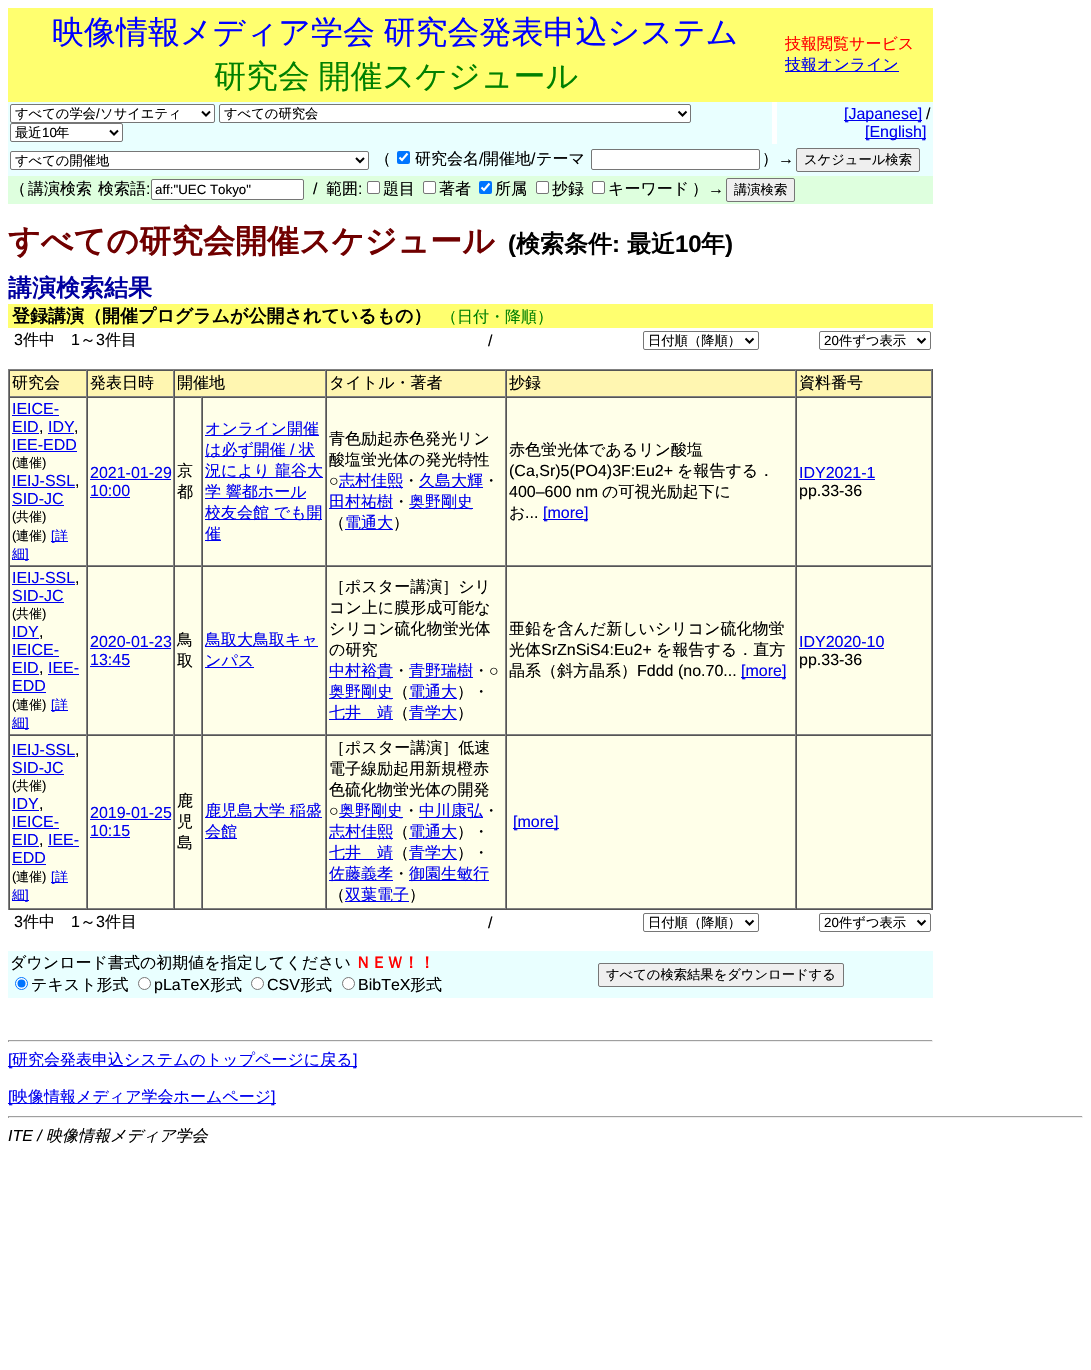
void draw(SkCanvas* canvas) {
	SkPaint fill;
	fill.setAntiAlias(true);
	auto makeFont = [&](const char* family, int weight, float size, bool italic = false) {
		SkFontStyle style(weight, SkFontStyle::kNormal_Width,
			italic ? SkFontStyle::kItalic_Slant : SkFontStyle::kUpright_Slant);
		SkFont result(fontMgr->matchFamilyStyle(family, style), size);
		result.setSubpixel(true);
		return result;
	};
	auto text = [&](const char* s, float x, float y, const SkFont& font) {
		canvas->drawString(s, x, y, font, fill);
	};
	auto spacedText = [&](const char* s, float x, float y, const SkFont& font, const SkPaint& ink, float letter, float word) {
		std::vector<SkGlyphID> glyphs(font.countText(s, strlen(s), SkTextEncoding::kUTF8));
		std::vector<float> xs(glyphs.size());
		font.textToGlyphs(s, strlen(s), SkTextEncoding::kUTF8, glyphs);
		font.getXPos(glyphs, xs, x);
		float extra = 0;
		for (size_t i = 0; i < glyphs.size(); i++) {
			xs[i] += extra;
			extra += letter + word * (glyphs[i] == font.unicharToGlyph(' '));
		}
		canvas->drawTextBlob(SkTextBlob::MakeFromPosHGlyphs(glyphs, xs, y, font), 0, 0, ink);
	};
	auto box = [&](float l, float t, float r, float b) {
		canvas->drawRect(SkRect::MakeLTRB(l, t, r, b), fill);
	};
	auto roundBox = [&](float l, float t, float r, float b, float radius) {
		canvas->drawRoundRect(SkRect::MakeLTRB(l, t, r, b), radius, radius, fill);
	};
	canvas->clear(0xFFFFFFFF);
	fill.setColor(0xFFFFFF6F);
	box(8, 8, 933, 102);
	fill.setColor(0xFF0000EE);
	box(785, 71, 899, 72);
	fill.setColor(0xFFE9FFFF);
	box(8, 102, 772, 144);
	fill.setColor(0xFFFFFFFF);
	canvas->drawRoundRect(SkRect::MakeLTRB(10.5f, 104.5f, 214.5f, 122.5f), 1.5f, 1.5f, fill);
	fill.setStyle(SkPaint::kStroke_Style);
	fill.setStrokeWidth(1);
	fill.setColor(0xFF767676);
	canvas->drawRoundRect(SkRect::MakeLTRB(10.5f, 104.5f, 214.5f, 122.5f), 1.5f, 1.5f, fill);
	fill.setStrokeWidth(2);
	fill.setColor(0xFF000000);
	canvas->drawPath(SkPathBuilder().moveTo(202, 111.5f).lineTo(206, 115.5f).lineTo(210, 111.5f).detach(), fill);
	fill.setStyle(SkPaint::kFill_Style);
	fill.setColor(0xFFFFFFFF);
	canvas->drawRoundRect(SkRect::MakeLTRB(219.5f, 104.5f, 690.5f, 122.5f), 1.5f, 1.5f, fill);
	fill.setStyle(SkPaint::kStroke_Style);
	fill.setStrokeWidth(1);
	fill.setColor(0xFF767676);
	canvas->drawRoundRect(SkRect::MakeLTRB(219.5f, 104.5f, 690.5f, 122.5f), 1.5f, 1.5f, fill);
	fill.setStrokeWidth(2);
	fill.setColor(0xFF000000);
	canvas->drawPath(SkPathBuilder().moveTo(678.5f, 111.5f).lineTo(682.5f, 115.5f).lineTo(686.5f, 111.5f).detach(), fill);
	fill.setStyle(SkPaint::kFill_Style);
	fill.setColor(0xFFFFFFFF);
	canvas->drawRoundRect(SkRect::MakeLTRB(10.5f, 123.5f, 122.5f, 141.5f), 1.5f, 1.5f, fill);
	fill.setStyle(SkPaint::kStroke_Style);
	fill.setStrokeWidth(1);
	fill.setColor(0xFF767676);
	canvas->drawRoundRect(SkRect::MakeLTRB(10.5f, 123.5f, 122.5f, 141.5f), 1.5f, 1.5f, fill);
	fill.setStrokeWidth(2);
	fill.setColor(0xFF000000);
	canvas->drawPath(SkPathBuilder().moveTo(110, 130.5f).lineTo(114, 134.5f).lineTo(118, 130.5f).detach(), fill);
	fill.setStyle(SkPaint::kFill_Style);
	fill.setColor(0xFFE9FFFF);
	box(777, 102, 933, 144);
	fill.setColor(0xFF0000EE);
	box(844, 120, 922, 121);
	box(865, 138, 926, 139);
	fill.setColor(0xFFE9FFFF);
	box(8, 144, 933, 176);
	fill.setColor(0xFFFFFFFF);
	canvas->drawRoundRect(SkRect::MakeLTRB(10.5f, 151.5f, 368.5f, 169.5f), 1.5f, 1.5f, fill);
	fill.setStyle(SkPaint::kStroke_Style);
	fill.setStrokeWidth(1);
	fill.setColor(0xFF767676);
	canvas->drawRoundRect(SkRect::MakeLTRB(10.5f, 151.5f, 368.5f, 169.5f), 1.5f, 1.5f, fill);
	fill.setStrokeWidth(2);
	fill.setColor(0xFF000000);
	canvas->drawPath(SkPathBuilder().moveTo(356, 158).lineTo(360, 162).lineTo(364, 158).detach(), fill);
	fill.setStyle(SkPaint::kFill_Style);
	fill.setColor(0xFF0075FF);
	roundBox(397, 151, 410, 164, 2);
	fill.setStyle(SkPaint::kStroke_Style);
	fill.setStrokeWidth(2.1f);
	fill.setColor(0xFFFFFFFF);
	canvas->drawPath(SkPathBuilder().moveTo(399.5f, 157.5f).lineTo(402, 160).lineTo(407.5f, 153.5f).detach(), fill);
	fill.setStyle(SkPaint::kFill_Style);
	canvas->drawRoundRect(SkRect::MakeLTRB(591.5f, 149.5f, 759.5f, 169.5f), 1.5f, 1.5f, fill);
	fill.setStyle(SkPaint::kStroke_Style);
	fill.setStrokeWidth(1);
	fill.setColor(0xFF767676);
	canvas->drawRoundRect(SkRect::MakeLTRB(591.5f, 149.5f, 759.5f, 169.5f), 1.5f, 1.5f, fill);
	fill.setStyle(SkPaint::kFill_Style);
	fill.setColor(0xFFEFEFEF);
	canvas->drawRoundRect(SkRect::MakeLTRB(796.5f, 148.5f, 919.5f, 171.5f), 1.5f, 1.5f, fill);
	fill.setStyle(SkPaint::kStroke_Style);
	fill.setColor(0xFF767676);
	canvas->drawRoundRect(SkRect::MakeLTRB(796.5f, 148.5f, 919.5f, 171.5f), 1.5f, 1.5f, fill);
	fill.setStyle(SkPaint::kFill_Style);
	fill.setColor(0xFFDEFFDE);
	box(8, 176, 933, 204);
	fill.setColor(0xFFFFFFFF);
	canvas->drawRoundRect(SkRect::MakeLTRB(151.5f, 179.5f, 303.5f, 199.5f), 1.5f, 1.5f, fill);
	fill.setStyle(SkPaint::kStroke_Style);
	fill.setColor(0xFF767676);
	canvas->drawRoundRect(SkRect::MakeLTRB(151.5f, 179.5f, 303.5f, 199.5f), 1.5f, 1.5f, fill);
	fill.setStyle(SkPaint::kFill_Style);
	fill.setColor(0xFFFFFFFF);
	canvas->drawRoundRect(SkRect::MakeLTRB(367.5f, 181.5f, 379.5f, 193.5f), 1.5f, 1.5f, fill);
	fill.setStyle(SkPaint::kStroke_Style);
	fill.setColor(0xFF767676);
	canvas->drawRoundRect(SkRect::MakeLTRB(367.5f, 181.5f, 379.5f, 193.5f), 1.5f, 1.5f, fill);
	fill.setStyle(SkPaint::kFill_Style);
	fill.setColor(0xFFFFFFFF);
	canvas->drawRoundRect(SkRect::MakeLTRB(423.5f, 181.5f, 435.5f, 193.5f), 1.5f, 1.5f, fill);
	fill.setStyle(SkPaint::kStroke_Style);
	fill.setColor(0xFF767676);
	canvas->drawRoundRect(SkRect::MakeLTRB(423.5f, 181.5f, 435.5f, 193.5f), 1.5f, 1.5f, fill);
	fill.setStyle(SkPaint::kFill_Style);
	fill.setColor(0xFF0075FF);
	roundBox(479, 181, 492, 194, 2);
	fill.setStyle(SkPaint::kStroke_Style);
	fill.setStrokeWidth(2.1f);
	fill.setColor(0xFFFFFFFF);
	canvas->drawPath(SkPathBuilder().moveTo(481.5f, 187.5f).lineTo(484, 190).lineTo(489.5f, 183.5f).detach(), fill);
	fill.setStyle(SkPaint::kFill_Style);
	canvas->drawRoundRect(SkRect::MakeLTRB(536.5f, 181.5f, 548.5f, 193.5f), 1.5f, 1.5f, fill);
	fill.setStyle(SkPaint::kStroke_Style);
	fill.setStrokeWidth(1);
	fill.setColor(0xFF767676);
	canvas->drawRoundRect(SkRect::MakeLTRB(536.5f, 181.5f, 548.5f, 193.5f), 1.5f, 1.5f, fill);
	fill.setStyle(SkPaint::kFill_Style);
	fill.setColor(0xFFFFFFFF);
	canvas->drawRoundRect(SkRect::MakeLTRB(592.5f, 181.5f, 604.5f, 193.5f), 1.5f, 1.5f, fill);
	fill.setStyle(SkPaint::kStroke_Style);
	fill.setColor(0xFF767676);
	canvas->drawRoundRect(SkRect::MakeLTRB(592.5f, 181.5f, 604.5f, 193.5f), 1.5f, 1.5f, fill);
	fill.setStyle(SkPaint::kFill_Style);
	fill.setColor(0xFFEFEFEF);
	canvas->drawRoundRect(SkRect::MakeLTRB(726.5f, 178.5f, 794.5f, 201.5f), 1.5f, 1.5f, fill);
	fill.setStyle(SkPaint::kStroke_Style);
	fill.setColor(0xFF767676);
	canvas->drawRoundRect(SkRect::MakeLTRB(726.5f, 178.5f, 794.5f, 201.5f), 1.5f, 1.5f, fill);
	fill.setStyle(SkPaint::kFill_Style);
	fill.setColor(0xFFFFFF6F);
	box(8, 304, 933, 328);
	fill.setStyle(SkPaint::kStroke_Style);
	fill.setColor(0xFF767676);
	canvas->drawRoundRect(SkRect::MakeLTRB(643.5f, 331.5f, 758.5f, 349.5f), 1.5f, 1.5f, fill);
	fill.setStrokeWidth(2);
	fill.setColor(0xFF000000);
	canvas->drawPath(SkPathBuilder().moveTo(745.5f, 338.5f).lineTo(749.5f, 342.5f).lineTo(753.5f, 338.5f).detach(), fill);
	fill.setStrokeWidth(1);
	fill.setColor(0xFF767676);
	canvas->drawRoundRect(SkRect::MakeLTRB(819.5f, 331.5f, 930.5f, 349.5f), 1.5f, 1.5f, fill);
	fill.setStrokeWidth(2);
	fill.setColor(0xFF000000);
	canvas->drawPath(SkPathBuilder().moveTo(917.5f, 338.5f).lineTo(921.5f, 342.5f).lineTo(925.5f, 338.5f).detach(), fill);
	fill.setStyle(SkPaint::kFill_Style);
	fill.setColor(0xFF808080);
	box(8, 369, 933, 370);
	fill.setColor(0xFF555555);
	box(932, 369, 933, 910);
	box(8, 909, 933, 910);
	fill.setColor(0xFF808080);
	box(8, 369, 9, 910);
	fill.setColor(0xFFFFF6B1);
	box(10, 371, 86, 396);
	fill.setColor(0xFF555555);
	box(9, 370, 932, 371);
	fill.setColor(0xFF808080);
	box(86, 370, 87, 397);
	box(9, 396, 87, 397);
	fill.setColor(0xFF555555);
	box(9, 370, 10, 397);
	fill.setColor(0xFFFFF6B1);
	box(88, 371, 173, 396);
	fill.setColor(0xFF808080);
	box(173, 370, 174, 397);
	box(87, 396, 174, 397);
	fill.setColor(0xFF555555);
	box(87, 370, 88, 397);
	fill.setColor(0xFFFFF6B1);
	box(175, 371, 325, 396);
	fill.setColor(0xFF808080);
	box(325, 370, 326, 397);
	box(174, 396, 326, 397);
	fill.setColor(0xFF555555);
	box(174, 370, 175, 397);
	fill.setColor(0xFFFFF6B1);
	box(327, 371, 505, 396);
	fill.setColor(0xFF808080);
	box(505, 370, 506, 397);
	box(326, 396, 506, 397);
	fill.setColor(0xFF555555);
	box(326, 370, 327, 397);
	fill.setColor(0xFFFFF6B1);
	box(507, 371, 795, 396);
	fill.setColor(0xFF808080);
	box(795, 370, 796, 397);
	box(506, 396, 796, 397);
	fill.setColor(0xFF555555);
	box(506, 370, 507, 397);
	fill.setColor(0xFFFFF6B1);
	box(797, 371, 931, 396);
	fill.setColor(0xFF808080);
	box(931, 370, 932, 397);
	box(796, 396, 932, 397);
	fill.setColor(0xFF555555);
	box(796, 370, 797, 397);
	fill.setColor(0xFFFFFFE9);
	box(10, 398, 86, 565);
	fill.setColor(0xFF555555);
	box(9, 397, 932, 398);
	fill.setColor(0xFF808080);
	box(86, 397, 87, 566);
	box(9, 565, 87, 566);
	fill.setColor(0xFF555555);
	box(9, 397, 10, 566);
	fill.setColor(0xFF0000EE);
	box(12, 415, 59, 416);
	box(12, 433, 39, 434);
	box(48, 433, 74, 434);
	box(12, 451, 77, 452);
	box(12, 487, 75, 488);
	box(12, 505, 64, 506);
	box(51, 541, 68, 542);
	box(12, 559, 29, 560);
	fill.setColor(0xFFFFFFE9);
	box(88, 398, 173, 565);
	fill.setColor(0xFF808080);
	box(173, 397, 174, 566);
	box(87, 565, 174, 566);
	fill.setColor(0xFF555555);
	box(87, 397, 88, 566);
	fill.setColor(0xFF0000EE);
	box(90, 479, 171, 480);
	box(90, 497, 130, 498);
	fill.setColor(0xFFFFFFE9);
	box(175, 398, 201, 565);
	fill.setColor(0xFF808080);
	box(201, 397, 202, 566);
	box(174, 565, 202, 566);
	fill.setColor(0xFF555555);
	box(174, 397, 175, 566);
	fill.setColor(0xFFFFFFE9);
	box(203, 398, 325, 565);
	fill.setColor(0xFF808080);
	box(325, 397, 326, 566);
	box(202, 565, 326, 566);
	fill.setColor(0xFF555555);
	box(202, 397, 203, 566);
	fill.setColor(0xFF0000EE);
	box(205, 435, 319, 436);
	box(205, 456, 315, 457);
	box(205, 477, 323, 478);
	box(205, 498, 306, 499);
	box(205, 519, 322, 520);
	box(205, 540, 221, 541);
	fill.setColor(0xFFFFFFE9);
	box(327, 398, 505, 565);
	fill.setColor(0xFF808080);
	box(505, 397, 506, 566);
	box(326, 565, 506, 566);
	fill.setColor(0xFF555555);
	box(326, 397, 327, 566);
	fill.setColor(0xFF0000EE);
	box(339, 487, 403, 488);
	box(419, 487, 483, 488);
	box(329, 508, 393, 509);
	box(409, 508, 473, 509);
	box(345, 529, 393, 530);
	fill.setColor(0xFFFFFFE9);
	box(507, 398, 795, 565);
	fill.setColor(0xFF808080);
	box(795, 397, 796, 566);
	box(506, 565, 796, 566);
	fill.setColor(0xFF555555);
	box(506, 397, 507, 566);
	fill.setColor(0xFF0000EE);
	box(543, 519, 588, 520);
	fill.setColor(0xFFFFFFE9);
	box(797, 398, 931, 565);
	fill.setColor(0xFF808080);
	box(931, 397, 932, 566);
	box(796, 565, 932, 566);
	fill.setColor(0xFF555555);
	box(796, 397, 797, 566);
	fill.setColor(0xFF0000EE);
	box(799, 479, 875, 480);
	fill.setColor(0xFFFFFFE9);
	box(10, 567, 86, 734);
	fill.setColor(0xFF555555);
	box(9, 566, 932, 567);
	fill.setColor(0xFF808080);
	box(86, 566, 87, 735);
	box(9, 734, 87, 735);
	fill.setColor(0xFF555555);
	box(9, 566, 10, 735);
	fill.setColor(0xFF0000EE);
	box(12, 584, 75, 585);
	box(12, 602, 64, 603);
	box(12, 638, 39, 639);
	box(12, 656, 59, 657);
	box(12, 674, 39, 675);
	box(48, 674, 79, 675);
	box(12, 692, 46, 693);
	box(51, 710, 68, 711);
	box(12, 728, 29, 729);
	fill.setColor(0xFFFFFFE9);
	box(88, 567, 173, 734);
	fill.setColor(0xFF808080);
	box(173, 566, 174, 735);
	box(87, 734, 174, 735);
	fill.setColor(0xFF555555);
	box(87, 566, 88, 735);
	fill.setColor(0xFF0000EE);
	box(90, 648, 171, 649);
	box(90, 666, 130, 667);
	fill.setColor(0xFFFFFFE9);
	box(175, 567, 201, 734);
	fill.setColor(0xFF808080);
	box(201, 566, 202, 735);
	box(174, 734, 202, 735);
	fill.setColor(0xFF555555);
	box(174, 566, 175, 735);
	fill.setColor(0xFFFFFFE9);
	box(203, 567, 325, 734);
	fill.setColor(0xFF808080);
	box(325, 566, 326, 735);
	box(202, 734, 326, 735);
	fill.setColor(0xFF555555);
	box(202, 566, 203, 735);
	fill.setColor(0xFF0000EE);
	box(205, 646, 318, 647);
	box(205, 667, 254, 668);
	fill.setColor(0xFFFFFFE9);
	box(327, 567, 505, 734);
	fill.setColor(0xFF808080);
	box(505, 566, 506, 735);
	box(326, 734, 506, 735);
	fill.setColor(0xFF555555);
	box(326, 566, 327, 735);
	fill.setColor(0xFF0000EE);
	box(329, 677, 393, 678);
	box(409, 677, 473, 678);
	box(329, 698, 393, 699);
	box(409, 698, 457, 699);
	box(329, 719, 393, 720);
	box(409, 719, 457, 720);
	fill.setColor(0xFFFFFFE9);
	box(507, 567, 795, 734);
	fill.setColor(0xFF808080);
	box(795, 566, 796, 735);
	box(506, 734, 796, 735);
	fill.setColor(0xFF555555);
	box(506, 566, 507, 735);
	fill.setColor(0xFF0000EE);
	box(741, 677, 786, 678);
	fill.setColor(0xFFFFFFE9);
	box(797, 567, 931, 734);
	fill.setColor(0xFF808080);
	box(931, 566, 932, 735);
	box(796, 734, 932, 735);
	fill.setColor(0xFF555555);
	box(796, 566, 797, 735);
	fill.setColor(0xFF0000EE);
	box(799, 648, 884, 649);
	fill.setColor(0xFFFFFFE9);
	box(10, 736, 86, 908);
	fill.setColor(0xFF555555);
	box(9, 735, 932, 736);
	fill.setColor(0xFF808080);
	box(86, 735, 87, 909);
	box(9, 908, 87, 909);
	fill.setColor(0xFF555555);
	box(9, 735, 10, 909);
	fill.setColor(0xFF0000EE);
	box(12, 756, 75, 757);
	box(12, 774, 64, 775);
	box(12, 810, 39, 811);
	box(12, 828, 59, 829);
	box(12, 846, 39, 847);
	box(48, 846, 79, 847);
	box(12, 864, 46, 865);
	box(51, 882, 68, 883);
	box(12, 900, 29, 901);
	fill.setColor(0xFFFFFFE9);
	box(88, 736, 173, 908);
	fill.setColor(0xFF808080);
	box(173, 735, 174, 909);
	box(87, 908, 174, 909);
	fill.setColor(0xFF555555);
	box(87, 735, 88, 909);
	fill.setColor(0xFF0000EE);
	box(90, 819, 171, 820);
	box(90, 837, 130, 838);
	fill.setColor(0xFFFFFFE9);
	box(175, 736, 201, 908);
	fill.setColor(0xFF808080);
	box(201, 735, 202, 909);
	box(174, 908, 202, 909);
	fill.setColor(0xFF555555);
	box(174, 735, 175, 909);
	fill.setColor(0xFFFFFFE9);
	box(203, 736, 325, 908);
	fill.setColor(0xFF808080);
	box(325, 735, 326, 909);
	box(202, 908, 326, 909);
	fill.setColor(0xFF555555);
	box(202, 735, 203, 909);
	fill.setColor(0xFF0000EE);
	box(205, 817, 322, 818);
	box(205, 838, 237, 839);
	fill.setColor(0xFFFFFFE9);
	box(327, 736, 505, 908);
	fill.setColor(0xFF808080);
	box(505, 735, 506, 909);
	box(326, 908, 506, 909);
	fill.setColor(0xFF555555);
	box(326, 735, 327, 909);
	fill.setColor(0xFF0000EE);
	box(339, 817, 403, 818);
	box(419, 817, 483, 818);
	box(329, 838, 393, 839);
	box(409, 838, 457, 839);
	box(329, 859, 393, 860);
	box(409, 859, 457, 860);
	box(329, 880, 393, 881);
	box(409, 880, 489, 881);
	box(345, 901, 409, 902);
	fill.setColor(0xFFFFFFE9);
	box(507, 736, 795, 908);
	fill.setColor(0xFF808080);
	box(795, 735, 796, 909);
	box(506, 908, 796, 909);
	fill.setColor(0xFF555555);
	box(506, 735, 507, 909);
	fill.setColor(0xFF0000EE);
	box(513, 828, 559, 829);
	fill.setColor(0xFFFFFFE9);
	box(797, 736, 931, 908);
	fill.setColor(0xFF808080);
	box(931, 735, 932, 909);
	box(796, 908, 932, 909);
	fill.setColor(0xFF555555);
	box(796, 735, 797, 909);
	fill.setStyle(SkPaint::kStroke_Style);
	fill.setStrokeWidth(1);
	fill.setColor(0xFF767676);
	canvas->drawRoundRect(SkRect::MakeLTRB(643.5f, 913.5f, 758.5f, 931.5f), 1.5f, 1.5f, fill);
	fill.setStrokeWidth(2);
	fill.setColor(0xFF000000);
	canvas->drawPath(SkPathBuilder().moveTo(745.5f, 920.5f).lineTo(749.5f, 924.5f).lineTo(753.5f, 920.5f).detach(), fill);
	fill.setStrokeWidth(1);
	fill.setColor(0xFF767676);
	canvas->drawRoundRect(SkRect::MakeLTRB(819.5f, 913.5f, 930.5f, 931.5f), 1.5f, 1.5f, fill);
	fill.setStrokeWidth(2);
	fill.setColor(0xFF000000);
	canvas->drawPath(SkPathBuilder().moveTo(917.5f, 920.5f).lineTo(921.5f, 924.5f).lineTo(925.5f, 920.5f).detach(), fill);
	fill.setStyle(SkPaint::kFill_Style);
	fill.setColor(0xFFE9FFFF);
	box(8, 951, 933, 998);
	fill.setColor(0xFFFFFFFF);
	canvas->drawCircle(21.5f, 983.5f, 6, fill);
	fill.setStyle(SkPaint::kStroke_Style);
	fill.setStrokeWidth(1);
	fill.setColor(0xFF0075FF);
	canvas->drawCircle(21.5f, 983.5f, 6, fill);
	fill.setStyle(SkPaint::kFill_Style);
	canvas->drawCircle(21.5f, 983.5f, 4, fill);
	fill.setColor(0xFFFFFFFF);
	canvas->drawCircle(144.5f, 983.5f, 6, fill);
	fill.setStyle(SkPaint::kStroke_Style);
	fill.setColor(0xFF767676);
	canvas->drawCircle(144.5f, 983.5f, 6, fill);
	fill.setStyle(SkPaint::kFill_Style);
	fill.setColor(0xFFFFFFFF);
	canvas->drawCircle(257.5f, 983.5f, 6, fill);
	fill.setStyle(SkPaint::kStroke_Style);
	fill.setColor(0xFF767676);
	canvas->drawCircle(257.5f, 983.5f, 6, fill);
	fill.setStyle(SkPaint::kFill_Style);
	fill.setColor(0xFFFFFFFF);
	canvas->drawCircle(348.5f, 983.5f, 6, fill);
	fill.setStyle(SkPaint::kStroke_Style);
	fill.setColor(0xFF767676);
	canvas->drawCircle(348.5f, 983.5f, 6, fill);
	fill.setStyle(SkPaint::kFill_Style);
	fill.setColor(0xFFEFEFEF);
	canvas->drawRoundRect(SkRect::MakeLTRB(598.5f, 963.5f, 843.5f, 986.5f), 1.5f, 1.5f, fill);
	fill.setStyle(SkPaint::kStroke_Style);
	fill.setColor(0xFF767676);
	canvas->drawRoundRect(SkRect::MakeLTRB(598.5f, 963.5f, 843.5f, 986.5f), 1.5f, 1.5f, fill);
	fill.setStyle(SkPaint::kFill_Style);
	fill.setColor(0xFF9F9F9F);
	box(8, 1040, 933, 1041);
	fill.setColor(0xFFEEEEEE);
	box(932, 1040, 933, 1042);
	box(8, 1041, 933, 1042);
	fill.setColor(0xFF9F9F9F);
	box(8, 1040, 9, 1042);
	fill.setColor(0xFF0000EE);
	box(8, 1066, 357, 1067);
	box(8, 1103, 276, 1104);
	fill.setColor(0xFF9F9F9F);
	box(8, 1116, 1083, 1117);
	fill.setColor(0xFFEEEEEE);
	box(1082, 1116, 1083, 1118);
	box(8, 1117, 1083, 1118);
	fill.setColor(0xFF9F9F9F);
	box(8, 1116, 9, 1118);
	auto font1 = makeFont("WenQuanYi Zen Hei", 500, 32);
	fill.setColor(0xFF0000FF);
	spacedText("映像情報メディア学会 研究会発表申込システム", 52, 43, font1, fill, 0, -1);
	fill.setColor(0xFF008000);
	spacedText("研究会 開催スケジュール", 214, 87, font1, fill, 0, -1);
	auto font2 = makeFont("WenQuanYi Zen Hei", 500, 16);
	fill.setColor(0xFFFF0000);
	text("技報閲覧サービス", 785, 49, font2);
	fill.setColor(0xFF0000EE);
	text("技報オンライン", 785, 70, font2);
	auto font3 = makeFont("WenQuanYi Zen Hei", 500, 13.3f);
	fill.setColor(0xFF000000);
	text("すべての学会 ソサイエティ", 15, 118, font3);
	auto font4 = makeFont("Liberation Sans", 400, 13.3f);
	text("/", 96, 118, font4);
	text("すべての研究会", 224, 118, font3);
	text("最近", 15, 137, font3);
	text("10", 42, 137, font4);
	text("年", 56, 137, font3);
	auto font5 = makeFont("Liberation Sans", 400, 16);
	fill.setColor(0xFF0000EE);
	text("[Japanese]", 844, 119, font5);
	fill.setColor(0xFF000000);
	text("/", 926, 119, font5);
	fill.setColor(0xFF0000EE);
	text("[English]", 865, 137, font5);
	fill.setColor(0xFF000000);
	text("すべての開催地", 15, 165, font3);
	text("（", 375, 164, font2);
	text("研究会名", 415, 164, font2);
	text("/", 479, 164, font5);
	text("開催地", 483, 164, font2);
	text("/", 531, 164, font5);
	text("テーマ", 536, 164, font2);
	text("）", 762, 164, font2);
	text("→", 778, 164, font5);
	text("スケジュール検索", 804, 164, font3);
	text("（", 10, 194, font2);
	text("講演検索", 28, 194, font2);
	text("検索語", 98, 194, font2);
	text(":", 146, 194, font5);
	text("aff:\"UEC Tokyo\"", 155, 194, font4);
	text("/", 313, 194, font5);
	text("範囲", 326, 194, font2);
	text(":", 358, 194, font5);
	text("題目", 383, 194, font2);
	text("著者", 439, 194, font2);
	text("所属", 495, 194, font2);
	text("抄録", 552, 194, font2);
	text("キーワード", 608, 194, font2);
	text("）", 692, 194, font2);
	text("→", 708, 194, font5);
	text("講演検索", 734, 194, font3);
	auto font6 = makeFont("WenQuanYi Zen Hei", 700, 32);
	fill.setColor(0xFF700000);
	text("すべての研究会開催スケジュール", 8, 252, font6);
	auto font7 = makeFont("Liberation Sans", 700, 24);
	fill.setColor(0xFF000000);
	text("(", 508, 252, font7);
	auto font8 = makeFont("WenQuanYi Zen Hei", 700, 24);
	text("検索条件", 516, 252, font8);
	text(":", 612, 252, font7);
	text("最近", 627, 252, font8);
	text("10", 675, 252, font7);
	text("年", 701, 252, font8);
	text(")", 725, 252, font7);
	fill.setColor(0xFF0000A0);
	text("講演検索結果", 8, 296, font8);
	auto font9 = makeFont("WenQuanYi Zen Hei", 700, 18);
	fill.setColor(0xFF000000);
	text("登録講演（開催プログラムが公開されているもの）", 12, 322, font9);
	fill.setColor(0xFF008000);
	text("（日付・降順）", 441, 322, font2);
	fill.setColor(0xFF000000);
	text("3", 14, 345, font5);
	text("件中", 23, 345, font2);
	text("1", 71, 345, font5);
	text("～", 80, 345, font2);
	text("3", 96, 345, font5);
	text("件目", 105, 345, font2);
	text("/", 488, 346, font5);
	text("日付順（降順）", 648, 345, font3);
	text("20", 824, 345, font4);
	text("件ずつ表示", 839, 345, font3);
	text("研究会", 12, 388, font2);
	text("発表日時", 90, 388, font2);
	text("開催地", 177, 388, font2);
	text("タイトル・著者", 329, 388, font2);
	text("抄録", 509, 388, font2);
	text("資料番号", 799, 388, font2);
	fill.setColor(0xFF0000EE);
	text("IEICE-", 12, 414, font5);
	text("EID", 12, 432, font5);
	text("IDY", 48, 432, font5);
	fill.setColor(0xFF000000);
	text(",", 39, 432, font5);
	text(",", 74, 432, font5);
	fill.setColor(0xFF0000EE);
	text("IEE-EDD", 12, 450, font5);
	auto font10 = makeFont("Liberation Sans", 400, 13);
	fill.setColor(0xFF000000);
	text("(", 12, 467, font10);
	auto font11 = makeFont("WenQuanYi Zen Hei", 500, 13);
	text("連催", 16, 467, font11);
	text(")", 42, 467, font10);
	fill.setColor(0xFF0000EE);
	text("IEIJ-SSL", 12, 486, font5);
	fill.setColor(0xFF000000);
	text(",", 75, 486, font5);
	fill.setColor(0xFF0000EE);
	text("SID-JC", 12, 504, font5);
	fill.setColor(0xFF000000);
	text("(", 12, 521, font10);
	text("共催", 16, 521, font11);
	text(")", 42, 521, font10);
	text("(", 12, 540, font10);
	text("連催", 16, 540, font11);
	text(")", 42, 540, font10);
	fill.setColor(0xFF0000EE);
	text("[", 51, 540, font10);
	text("詳", 55, 540, font11);
	text("細", 12, 558, font11);
	text("]", 25, 558, font10);
	text("2021-01-29", 90, 478, font5);
	text("10:00", 90, 496, font5);
	fill.setColor(0xFF000000);
	text("京", 177, 476, font2);
	text("都", 177, 497, font2);
	fill.setColor(0xFF0000EE);
	text("オンライン開催", 205, 434, font2);
	text("は必ず開催", 205, 455, font2);
	text("/", 290, 455, font5);
	text("状", 299, 455, font2);
	text("況により 龍谷大", 205, 476, font2);
	text("学 響都ホール", 205, 497, font2);
	text("校友会館 でも開", 205, 518, font2);
	text("催", 205, 539, font2);
	fill.setColor(0xFF000000);
	text("青色励起赤色発光リン", 329, 444, font2);
	text("酸塩蛍光体の発光特性", 329, 465, font2);
	text("○", 329, 486, font5);
	fill.setColor(0xFF0000EE);
	text("志村佳熙", 339, 486, font2);
	fill.setColor(0xFF000000);
	text("・", 403, 486, font2);
	fill.setColor(0xFF0000EE);
	text("久島大輝", 419, 486, font2);
	fill.setColor(0xFF000000);
	text("・", 483, 486, font2);
	fill.setColor(0xFF0000EE);
	text("田村祐樹", 329, 507, font2);
	fill.setColor(0xFF000000);
	text("・", 393, 507, font2);
	fill.setColor(0xFF0000EE);
	text("奥野剛史", 409, 507, font2);
	fill.setColor(0xFF000000);
	text("（", 329, 528, font2);
	fill.setColor(0xFF0000EE);
	text("電通大", 345, 528, font2);
	fill.setColor(0xFF000000);
	text("）", 393, 528, font2);
	text("赤色蛍光体であるリン酸塩", 509, 455, font2);
	text("(Ca,Sr)5(PO4)3F:Eu2+", 509, 476, font5);
	text("を報告する．", 677, 476, font2);
	text("400–600 nm", 509, 497, font5);
	text("の可視光励起下に", 602, 497, font2);
	text("お", 509, 518, font2);
	text("...", 525, 518, font5);
	fill.setColor(0xFF0000EE);
	text("[more]", 543, 518, font5);
	text("IDY2021-1", 799, 478, font5);
	fill.setColor(0xFF000000);
	text("pp.33-36", 799, 496, font5);
	fill.setColor(0xFF0000EE);
	text("IEIJ-SSL", 12, 583, font5);
	fill.setColor(0xFF000000);
	text(",", 75, 583, font5);
	fill.setColor(0xFF0000EE);
	text("SID-JC", 12, 601, font5);
	fill.setColor(0xFF000000);
	text("(", 12, 618, font10);
	text("共催", 16, 618, font11);
	text(")", 42, 618, font10);
	fill.setColor(0xFF0000EE);
	text("IDY", 12, 637, font5);
	fill.setColor(0xFF000000);
	text(",", 39, 637, font5);
	fill.setColor(0xFF0000EE);
	text("IEICE-", 12, 655, font5);
	text("EID", 12, 673, font5);
	text("IEE-", 48, 673, font5);
	fill.setColor(0xFF000000);
	text(",", 39, 673, font5);
	fill.setColor(0xFF0000EE);
	text("EDD", 12, 691, font5);
	fill.setColor(0xFF000000);
	text("(", 12, 709, font10);
	text("連催", 16, 709, font11);
	text(")", 42, 709, font10);
	fill.setColor(0xFF0000EE);
	text("[", 51, 709, font10);
	text("詳", 55, 709, font11);
	text("細", 12, 727, font11);
	text("]", 25, 727, font10);
	text("2020-01-23", 90, 647, font5);
	text("13:45", 90, 665, font5);
	fill.setColor(0xFF000000);
	text("鳥", 177, 645, font2);
	text("取", 177, 666, font2);
	fill.setColor(0xFF0000EE);
	text("鳥取大鳥取キャ", 205, 645, font2);
	text("ンパス", 205, 666, font2);
	fill.setColor(0xFF000000);
	text("［ポスター講演］シリ", 329, 592, font2);
	text("コン上に膜形成可能な", 329, 613, font2);
	text("シリコン硫化物蛍光体", 329, 634, font2);
	text("の研究", 329, 655, font2);
	fill.setColor(0xFF0000EE);
	text("中村裕貴", 329, 676, font2);
	fill.setColor(0xFF000000);
	text("・", 393, 676, font2);
	fill.setColor(0xFF0000EE);
	text("青野瑞樹", 409, 676, font2);
	fill.setColor(0xFF000000);
	text("・", 473, 676, font2);
	text("○", 489, 676, font5);
	fill.setColor(0xFF0000EE);
	text("奥野剛史", 329, 697, font2);
	fill.setColor(0xFF000000);
	text("（", 393, 697, font2);
	fill.setColor(0xFF0000EE);
	text("電通大", 409, 697, font2);
	fill.setColor(0xFF000000);
	text("）・", 457, 697, font2);
	fill.setColor(0xFF0000EE);
	text("七井　靖", 329, 718, font2);
	fill.setColor(0xFF000000);
	text("（", 393, 718, font2);
	fill.setColor(0xFF0000EE);
	text("青学大", 409, 718, font2);
	fill.setColor(0xFF000000);
	text("）", 457, 718, font2);
	text("亜鉛を含んだ新しいシリコン硫化物蛍", 509, 634, font2);
	text("光体", 509, 655, font2);
	text("SrZnSiS4:Eu2+", 541, 655, font5);
	text("を報告する．直方", 656, 655, font2);
	text("晶系（斜方晶系）", 509, 676, font2);
	text("Fddd (no.70...", 637, 676, font5);
	fill.setColor(0xFF0000EE);
	text("[more]", 741, 676, font5);
	text("IDY2020-10", 799, 647, font5);
	fill.setColor(0xFF000000);
	text("pp.33-36", 799, 665, font5);
	fill.setColor(0xFF0000EE);
	text("IEIJ-SSL", 12, 755, font5);
	fill.setColor(0xFF000000);
	text(",", 75, 755, font5);
	fill.setColor(0xFF0000EE);
	text("SID-JC", 12, 773, font5);
	fill.setColor(0xFF000000);
	text("(", 12, 790, font10);
	text("共催", 16, 790, font11);
	text(")", 42, 790, font10);
	fill.setColor(0xFF0000EE);
	text("IDY", 12, 809, font5);
	fill.setColor(0xFF000000);
	text(",", 39, 809, font5);
	fill.setColor(0xFF0000EE);
	text("IEICE-", 12, 827, font5);
	text("EID", 12, 845, font5);
	text("IEE-", 48, 845, font5);
	fill.setColor(0xFF000000);
	text(",", 39, 845, font5);
	fill.setColor(0xFF0000EE);
	text("EDD", 12, 863, font5);
	fill.setColor(0xFF000000);
	text("(", 12, 881, font10);
	text("連催", 16, 881, font11);
	text(")", 42, 881, font10);
	fill.setColor(0xFF0000EE);
	text("[", 51, 881, font10);
	text("詳", 55, 881, font11);
	text("細", 12, 899, font11);
	text("]", 25, 899, font10);
	text("2019-01-25", 90, 818, font5);
	text("10:15", 90, 836, font5);
	fill.setColor(0xFF000000);
	text("鹿", 177, 806, font2);
	text("児", 177, 827, font2);
	text("島", 177, 848, font2);
	fill.setColor(0xFF0000EE);
	text("鹿児島大学 稲盛", 205, 816, font2);
	text("会館", 205, 837, font2);
	fill.setColor(0xFF000000);
	text("［ポスター講演］低速", 329, 753, font2);
	text("電子線励起用新規橙赤", 329, 774, font2);
	text("色硫化物蛍光体の開発", 329, 795, font2);
	text("○", 329, 816, font5);
	fill.setColor(0xFF0000EE);
	text("奥野剛史", 339, 816, font2);
	fill.setColor(0xFF000000);
	text("・", 403, 816, font2);
	fill.setColor(0xFF0000EE);
	text("中川康弘", 419, 816, font2);
	fill.setColor(0xFF000000);
	text("・", 483, 816, font2);
	fill.setColor(0xFF0000EE);
	text("志村佳熙", 329, 837, font2);
	fill.setColor(0xFF000000);
	text("（", 393, 837, font2);
	fill.setColor(0xFF0000EE);
	text("電通大", 409, 837, font2);
	fill.setColor(0xFF000000);
	text("）・", 457, 837, font2);
	fill.setColor(0xFF0000EE);
	text("七井　靖", 329, 858, font2);
	fill.setColor(0xFF000000);
	text("（", 393, 858, font2);
	fill.setColor(0xFF0000EE);
	text("青学大", 409, 858, font2);
	fill.setColor(0xFF000000);
	text("）・", 457, 858, font2);
	fill.setColor(0xFF0000EE);
	text("佐藤義孝", 329, 879, font2);
	fill.setColor(0xFF000000);
	text("・", 393, 879, font2);
	fill.setColor(0xFF0000EE);
	text("御園生敏行", 409, 879, font2);
	fill.setColor(0xFF000000);
	text("（", 329, 900, font2);
	fill.setColor(0xFF0000EE);
	text("双葉電子", 345, 900, font2);
	fill.setColor(0xFF000000);
	text("）", 409, 900, font2);
	fill.setColor(0xFF0000EE);
	text("[more]", 513, 827, font5);
	fill.setColor(0xFF000000);
	text("3", 14, 927, font5);
	text("件中", 23, 927, font2);
	text("1", 71, 927, font5);
	text("～", 80, 927, font2);
	text("3", 96, 927, font5);
	text("件目", 105, 927, font2);
	text("/", 488, 928, font5);
	text("日付順（降順）", 648, 927, font3);
	text("20", 824, 927, font4);
	text("件ずつ表示", 839, 927, font3);
	text("ダウンロード書式の初期値を指定してください", 10, 968, font2);
	auto font12 = makeFont("WenQuanYi Zen Hei", 700, 16);
	fill.setColor(0xFFFF0000);
	text("ＮＥＷ！！", 355, 968, font12);
	fill.setColor(0xFF000000);
	text("テキスト形式", 31, 990, font2);
	text("pLaTeX", 154, 990, font5);
	text("形式", 210, 990, font2);
	text("CSV", 267, 990, font5);
	text("形式", 300, 990, font2);
	text("BibTeX", 358, 990, font5);
	text("形式", 410, 990, font2);
	text("すべての検索結果をダウンロードする", 606, 979, font3);
	fill.setColor(0xFF0000EE);
	text("[", 8, 1065, font5);
	text("研究会発表申込システムのトップページに戻る", 12, 1065, font2);
	text("]", 353, 1065, font5);
	text("[", 8, 1102, font5);
	text("映像情報メディア学会ホームページ", 12, 1102, font2);
	text("]", 271, 1102, font5);
	auto font13 = makeFont("Liberation Sans", 400, 16, true);
	fill.setColor(0xFF000000);
	text("ITE /", 8, 1141, font13);
	auto font14 = makeFont("WenQuanYi Zen Hei", 500, 16, true);
	text("映像情報メディア学会", 46, 1141, font14);
}
